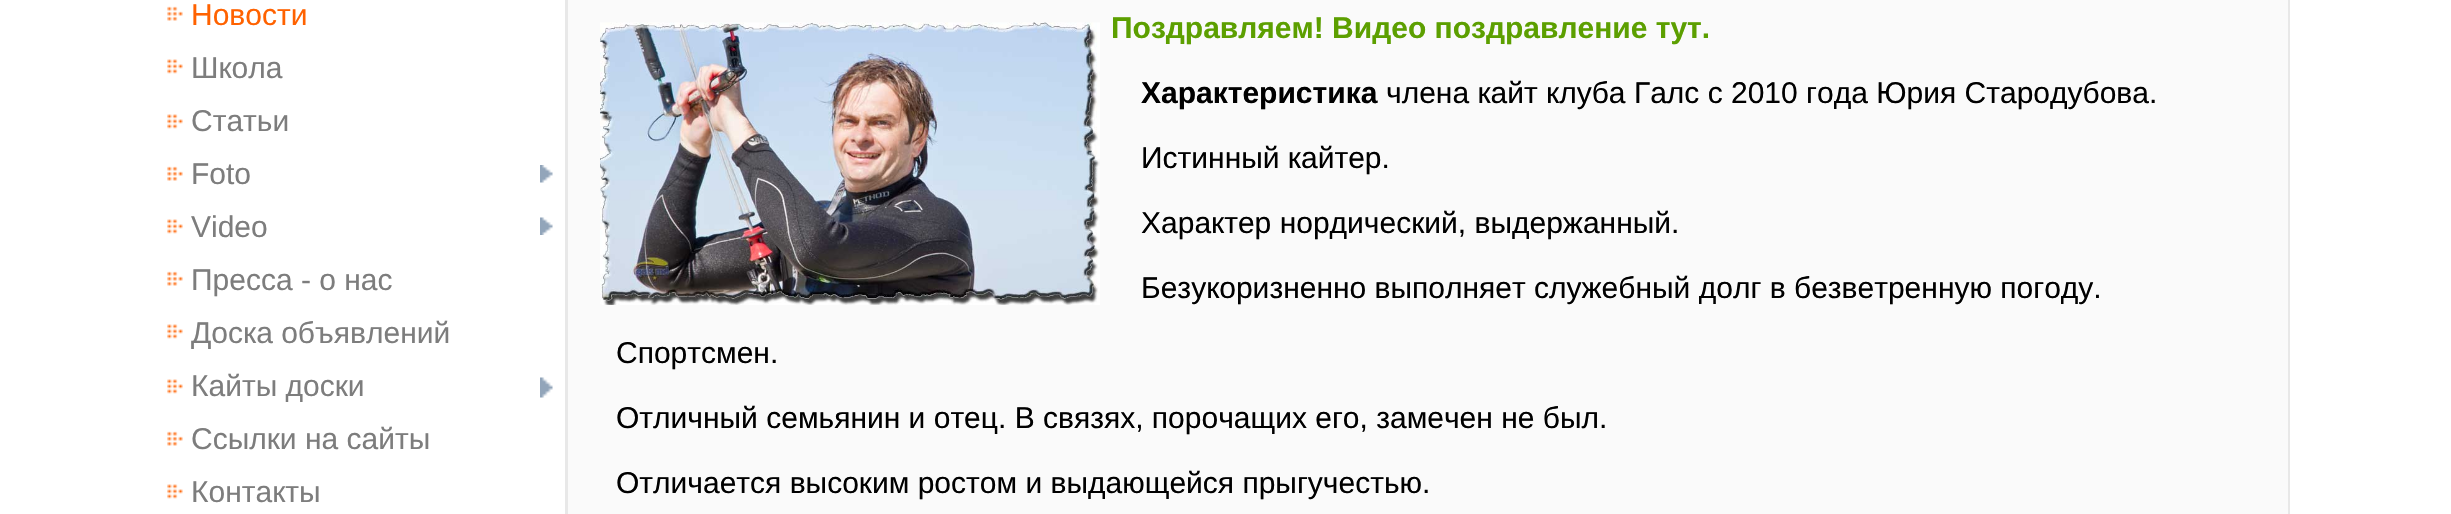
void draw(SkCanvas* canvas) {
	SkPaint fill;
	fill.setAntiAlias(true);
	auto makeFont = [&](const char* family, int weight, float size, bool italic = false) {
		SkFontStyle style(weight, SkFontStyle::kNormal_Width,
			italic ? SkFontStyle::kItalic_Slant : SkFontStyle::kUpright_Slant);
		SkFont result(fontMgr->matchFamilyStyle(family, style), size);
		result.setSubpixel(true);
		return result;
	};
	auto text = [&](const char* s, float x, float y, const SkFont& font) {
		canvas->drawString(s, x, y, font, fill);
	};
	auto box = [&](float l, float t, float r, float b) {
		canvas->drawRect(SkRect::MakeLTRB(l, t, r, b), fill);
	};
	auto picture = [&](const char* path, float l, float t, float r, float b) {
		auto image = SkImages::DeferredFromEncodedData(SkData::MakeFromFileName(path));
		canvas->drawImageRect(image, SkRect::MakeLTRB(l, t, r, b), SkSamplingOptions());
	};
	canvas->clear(0xFFFFFFFF);
	picture("image0.png", 167, 6, 183, 21);
	picture("image1.png", 167, 59, 183, 74);
	picture("image1.png", 167, 114, 183, 129);
	picture("image0.png", 167, 166, 183, 181);
	picture("image2.png", 540, 165, 553, 183);
	picture("image1.png", 167, 219, 183, 234);
	picture("image3.png", 540, 217, 553, 235);
	picture("image0.png", 167, 271, 183, 286);
	picture("image1.png", 167, 324, 183, 339);
	picture("image1.png", 167, 379, 183, 394);
	picture("image4.png", 540, 377, 553, 398);
	picture("image0.png", 167, 431, 183, 446);
	picture("image1.png", 167, 484, 183, 499);
	fill.setStyle(SkPaint::kStroke_Style);
	fill.setStrokeWidth(3);
	fill.setColor(0xFFE8E8E8);
	canvas->drawRect(SkRect::MakeLTRB(566.5f, -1.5f, 2288.5f, 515.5f), fill);
	fill.setStyle(SkPaint::kFill_Style);
	fill.setColor(0xFFFAFAFA);
	box(568, 0, 2288, 514);
	picture("image5.png", 600, 22, 1100, 305);
	auto font1 = makeFont("Liberation Sans", 400, 30);
	fill.setColor(0xFFFF6200);
	text("Новости", 191, 25, font1);
	fill.setColor(0xFF7D7D7D);
	text("Школа", 191, 78, font1);
	text("Статьи", 191, 131, font1);
	text("Foto", 191, 184, font1);
	text("Video", 191, 237, font1);
	text("Пресса - о нас", 191, 290, font1);
	text("Доска объявлений", 191, 343, font1);
	text("Кайты доски", 191, 396, font1);
	text("Ссылки на сайты", 191, 449, font1);
	text("Контакты", 191, 502, font1);
	auto font2 = makeFont("Liberation Sans", 700, 30);
	fill.setColor(0xFF5C9F00);
	text("Поздравляем! Видео поздравление тут.", 1111, 38, font2);
	fill.setColor(0xFF000000);
	text("Характеристика", 1141, 103, font2);
	text("члена кайт клуба Галс с 2010 года Юрия Стародубова.", 1386, 103, font1);
	text("Истинный кайтер.", 1141, 168, font1);
	text("Характер нордический, выдержанный.", 1141, 233, font1);
	text("Безукоризненно выполняет служебный долг в безветренную погоду.", 1141, 298, font1);
	text("Спортсмен.", 616, 363, font1);
	text("Отличный семьянин и отец. В связях, порочащих его, замечен не был.", 616, 428, font1);
	text("Отличается высоким ростом и выдающейся прыгучестью.", 616, 493, font1);
}
